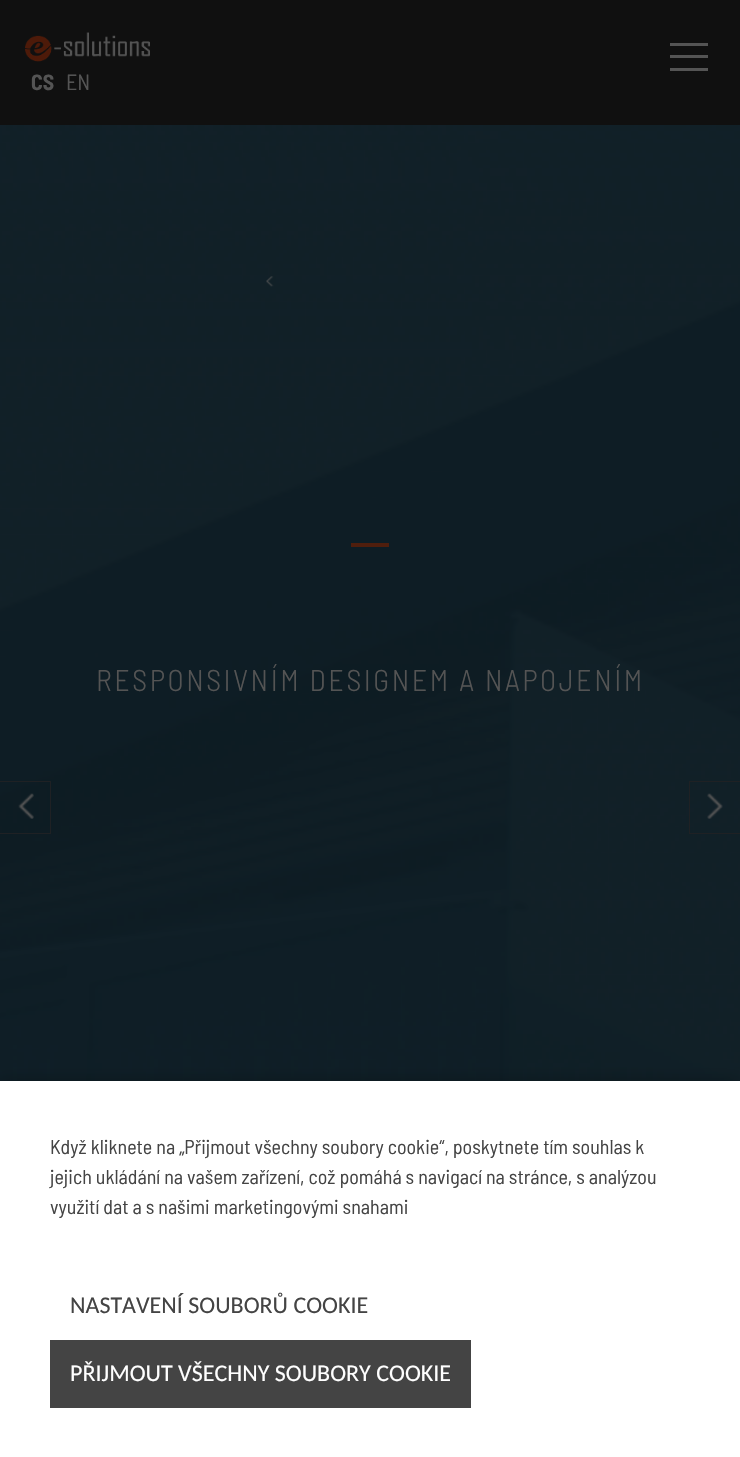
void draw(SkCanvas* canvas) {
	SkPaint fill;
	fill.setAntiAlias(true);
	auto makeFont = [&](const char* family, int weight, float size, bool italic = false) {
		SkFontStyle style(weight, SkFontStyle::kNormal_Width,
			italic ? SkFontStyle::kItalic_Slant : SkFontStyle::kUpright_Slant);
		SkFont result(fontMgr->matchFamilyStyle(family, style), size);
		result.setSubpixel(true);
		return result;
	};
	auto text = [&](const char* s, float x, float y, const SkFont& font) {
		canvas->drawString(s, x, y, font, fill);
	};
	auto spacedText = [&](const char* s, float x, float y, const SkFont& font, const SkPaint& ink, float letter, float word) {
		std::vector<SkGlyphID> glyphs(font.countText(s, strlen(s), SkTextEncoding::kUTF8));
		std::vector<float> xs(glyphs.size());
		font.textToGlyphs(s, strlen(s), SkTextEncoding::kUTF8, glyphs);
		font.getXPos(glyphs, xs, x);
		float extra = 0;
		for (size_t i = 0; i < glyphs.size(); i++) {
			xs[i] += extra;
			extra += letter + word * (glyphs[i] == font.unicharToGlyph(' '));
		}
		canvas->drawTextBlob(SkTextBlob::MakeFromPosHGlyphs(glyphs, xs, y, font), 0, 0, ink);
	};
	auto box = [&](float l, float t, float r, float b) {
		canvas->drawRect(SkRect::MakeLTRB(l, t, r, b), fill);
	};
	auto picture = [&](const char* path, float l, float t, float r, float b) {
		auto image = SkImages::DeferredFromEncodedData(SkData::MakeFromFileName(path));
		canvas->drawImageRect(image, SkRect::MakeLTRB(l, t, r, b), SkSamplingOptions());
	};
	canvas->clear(0xFFFFFFFF);
	fill.setColor(0xFF101010);
	box(0, 0, 740, 125);
	fill.setColor(0xFF545454);
	box(670, 43, 708, 46);
	box(670, 55, 708, 58);
	box(670, 68, 708, 71);
	picture("image0.png", 25, 32, 150, 62);
	picture("image1.png", 0, 125, 740, 1081);
	picture("image2.png", 266, 276, 274, 287);
	fill.setColor(0xFF4F1E0D);
	box(351, 543, 389, 547);
	fill.setStyle(SkPaint::kStroke_Style);
	fill.setStrokeWidth(1);
	fill.setColor(0xFF1F2124);
	canvas->drawRect(SkRect::MakeLTRB(-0.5f, 781.5f, 50.5f, 833.5f), fill);
	picture("image3.png", 18, 793, 34, 819);
	canvas->drawRect(SkRect::MakeLTRB(689.5f, 781.5f, 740.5f, 833.5f), fill);
	picture("image4.png", 707, 793, 723, 819);
	fill.setStyle(SkPaint::kFill_Style);
	fill.setColor(0x40000000);
	fill.setMaskFilter(SkMaskFilter::MakeBlur(kNormal_SkBlurStyle, 7.5f));
	canvas->drawRect(SkRect::MakeLTRB(0, 1081, 740, 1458), fill);
	fill.setMaskFilter(nullptr);
	fill.setColor(0xFFFFFFFF);
	box(0, 1081, 740, 1457);
	fill.setColor(0xFF444444);
	box(50, 1340, 471, 1408);
	auto font1 = makeFont("Barlow Semi Condensed", 700, 22);
	fill.setColor(0xFF545454);
	text("CS", 31, 90, font1);
	auto font2 = makeFont("Barlow Semi Condensed", 400, 22);
	text("EN", 66, 90, font2);
	auto font3 = makeFont("Barlow Semi Condensed", 300, 30);
	spacedText("RESPONSIVNÍM DESIGNEM A NAPOJENÍM", 96, 691, font3, fill, 2.5f, 0);
	auto font4 = makeFont("Barlow Semi Condensed", 400, 20);
	fill.setColor(0xFF444444);
	text("Když kliknete na „Přijmout všechny soubory cookie“, poskytnete tím souhlas k", 50, 1154, font4);
	text("jejich ukládání na vašem zařízení, což pomáhá s navigací na stránce, s analýzou", 50, 1184, font4);
	text("využití dat a s našimi marketingovými snahami", 50, 1214, font4);
	auto font5 = makeFont("Carlito", 400, 24);
	text("NASTAVENÍ SOUBORŮ COOKIE", 70, 1313, font5);
	fill.setColor(0xFFFFFFFF);
	text("PŘIJMOUT VŠECHNY SOUBORY COOKIE", 70, 1381, font5);
}
